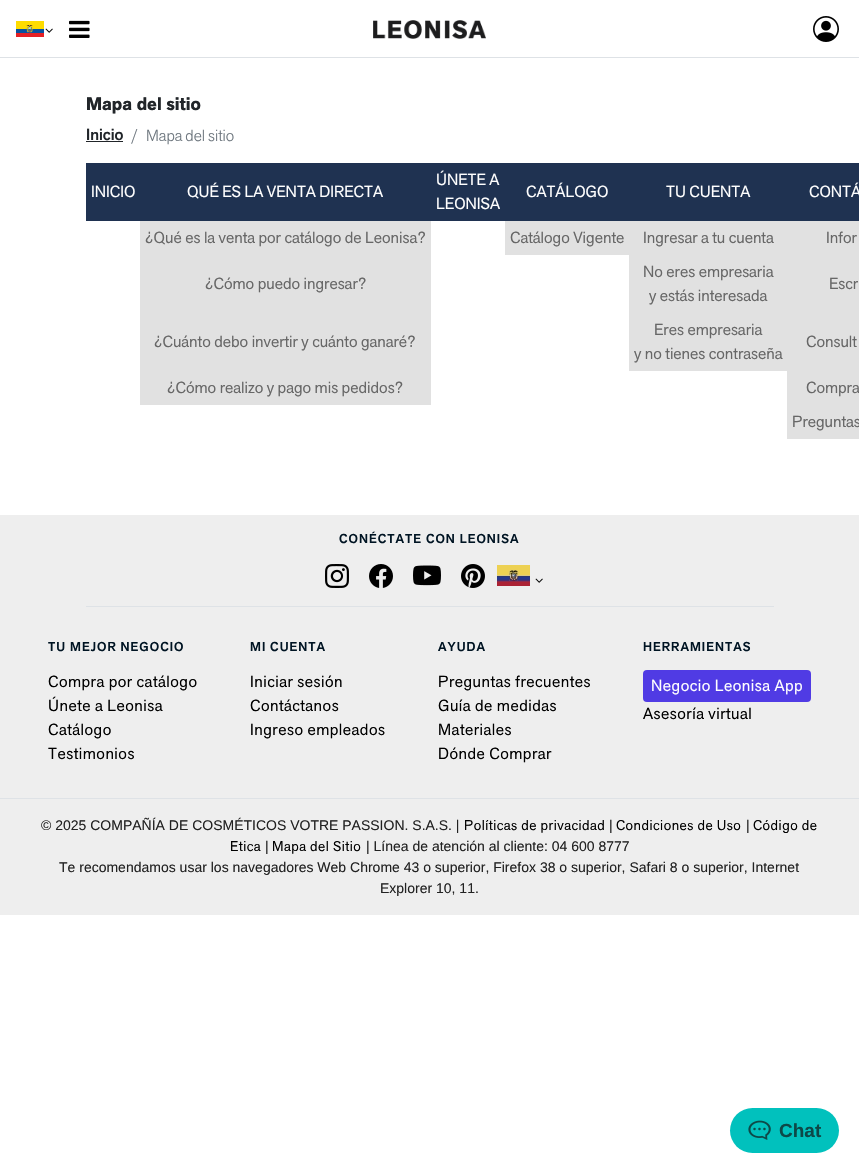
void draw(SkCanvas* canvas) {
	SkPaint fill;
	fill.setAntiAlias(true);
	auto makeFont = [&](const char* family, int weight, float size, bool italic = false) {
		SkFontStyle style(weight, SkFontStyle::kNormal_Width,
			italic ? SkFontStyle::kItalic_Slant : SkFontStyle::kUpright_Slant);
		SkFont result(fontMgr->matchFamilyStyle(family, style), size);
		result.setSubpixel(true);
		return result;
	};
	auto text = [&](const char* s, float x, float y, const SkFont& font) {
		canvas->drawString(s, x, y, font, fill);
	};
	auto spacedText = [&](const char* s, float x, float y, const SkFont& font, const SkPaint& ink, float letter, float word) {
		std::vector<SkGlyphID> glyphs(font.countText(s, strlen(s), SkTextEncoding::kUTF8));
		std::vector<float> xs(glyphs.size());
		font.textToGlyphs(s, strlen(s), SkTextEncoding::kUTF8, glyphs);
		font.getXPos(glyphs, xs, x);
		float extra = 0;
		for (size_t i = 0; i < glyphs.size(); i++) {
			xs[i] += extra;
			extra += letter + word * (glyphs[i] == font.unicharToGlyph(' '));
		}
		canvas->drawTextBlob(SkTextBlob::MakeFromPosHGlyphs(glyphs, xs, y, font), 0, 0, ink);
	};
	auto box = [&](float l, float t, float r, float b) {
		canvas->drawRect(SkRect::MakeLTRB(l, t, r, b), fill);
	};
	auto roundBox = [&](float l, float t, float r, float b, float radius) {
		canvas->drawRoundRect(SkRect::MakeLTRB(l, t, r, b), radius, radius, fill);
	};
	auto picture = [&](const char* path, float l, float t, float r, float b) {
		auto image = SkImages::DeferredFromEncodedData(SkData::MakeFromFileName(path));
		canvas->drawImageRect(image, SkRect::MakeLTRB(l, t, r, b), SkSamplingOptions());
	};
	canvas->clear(0xFFFFFFFF);
	fill.setColor(0xFFDEE2E6);
	box(0, 57, 859, 58);
	picture("image0.png", 16, 21, 44, 37);
	picture("image1.png", 45, 28, 53, 33);
	picture("image2.png", 69, 20, 90, 38);
	picture("image3.png", 373, 20, 486, 39);
	picture("image4.png", 813, 16, 839, 42);
	fill.setColor(0xFF212529);
	box(86, 141, 123, 142);
	fill.setColor(0xFF1F3251);
	box(86, 163, 859, 221);
	fill.setColor(0xFFE1E1E1);
	box(140, 221, 859, 405);
	fill.setColor(0xFFFFFFFF);
	box(431, 221, 505, 405);
	box(505, 255, 629, 405);
	box(629, 371, 787, 405);
	fill.setColor(0xFFE1E1E1);
	box(787, 405, 859, 439);
	fill.setColor(0xFFEEEEEE);
	box(0, 515, 859, 915);
	fill.setColor(0xFFDEE2E6);
	box(86, 606, 774, 607);
	picture("image5.png", 325, 564, 349, 588);
	picture("image6.png", 369, 564, 393, 588);
	picture("image7.png", 413, 565, 441, 586);
	picture("image8.png", 461, 564, 485, 588);
	picture("image9.png", 497, 565, 530, 586);
	picture("image10.png", 535, 578, 543, 583);
	fill.setColor(0xFF503BE4);
	roundBox(643, 670, 811, 702, 4);
	fill.setColor(0xFFDEE2E6);
	box(0, 798, 859, 799);
	fill.setColor(0xFF01C1BD);
	roundBox(730, 1108, 839, 1153, 22.5f);
	picture("image11.png", 748, 1120, 771, 1140);
	auto font1 = makeFont("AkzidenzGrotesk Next", 700, 18);
	fill.setColor(0xFF212529);
	text("Mapa del sitio", 86, 110, font1);
	auto font2 = makeFont("AkzidenzGrotesk Next", 500, 16);
	text("Inicio", 86, 140, font2);
	auto font3 = makeFont("AkzidenzGrotesk Next", 300, 16);
	fill.setColor(0xFF6C757D);
	text("/", 131, 141, font3);
	text("Mapa del sitio", 146, 141, font3);
	auto font4 = makeFont("AkzidenzGrotesk Next", 400, 16);
	fill.setColor(0xFFFFFFFF);
	text("INICIO", 91, 197, font4);
	text("QUÉ ES LA VENTA DIRECTA", 187, 197, font4);
	text("ÚNETE A", 436, 185, font4);
	text("LEONISA", 436, 209, font4);
	text("CATÁLOGO", 526, 197, font4);
	text("TU CUENTA", 666, 197, font4);
	text("CONTÁ", 809, 197, font4);
	fill.setColor(0xFF676767);
	text("¿Qué es la venta por catálogo de Leonisa?", 145, 243, font4);
	text("Catálogo Vigente", 510, 243, font4);
	text("Ingresar a tu cuenta", 643, 243, font4);
	text("Infor", 826, 243, font4);
	text("¿Cómo puedo ingresar?", 205, 289, font4);
	text("No eres empresaria", 643, 277, font4);
	text("y estás interesada", 649, 301, font4);
	text("Escr", 829, 289, font4);
	text("¿Cuánto debo invertir y cuánto ganaré?", 154, 347, font4);
	text("Eres empresaria", 654, 335, font4);
	text("y no tienes contraseña", 634, 359, font4);
	text("Consult", 806, 347, font4);
	text("¿Cómo realizo y pago mis pedidos?", 167, 393, font4);
	text("Compra", 806, 393, font4);
	text("Preguntas", 792, 427, font4);
	auto font5 = makeFont("AkzidenzGrotesk Next", 500, 12.75f);
	fill.setColor(0xFF001423);
	spacedText("CONÉCTATE CON LEONISA", 339, 543, font5, fill, 1, 0);
	spacedText("TU MEJOR NEGOCIO", 48, 651, font5, fill, 1, 0);
	fill.setColor(0xFF000000);
	spacedText("Compra por catálogo", 48, 687, font4, fill, 0.5f, 0);
	spacedText("Únete a Leonisa", 48, 711, font4, fill, 0.5f, 0);
	spacedText("Catálogo", 48, 735, font4, fill, 0.5f, 0);
	spacedText("Testimonios", 48, 759, font4, fill, 0.5f, 0);
	fill.setColor(0xFF001423);
	spacedText("MI CUENTA", 250, 651, font5, fill, 1, 0);
	fill.setColor(0xFF000000);
	spacedText("Iniciar sesión", 250, 687, font4, fill, 0.5f, 0);
	spacedText("Contáctanos", 250, 711, font4, fill, 0.5f, 0);
	spacedText("Ingreso empleados", 250, 735, font4, fill, 0.5f, 0);
	fill.setColor(0xFF001423);
	spacedText("AYUDA", 438, 651, font5, fill, 1, 0);
	fill.setColor(0xFF000000);
	spacedText("Preguntas frecuentes", 438, 687, font4, fill, 0.5f, 0);
	spacedText("Guía de medidas", 438, 711, font4, fill, 0.5f, 0);
	spacedText("Materiales", 438, 735, font4, fill, 0.5f, 0);
	spacedText("Dónde Comprar", 438, 759, font4, fill, 0.5f, 0);
	fill.setColor(0xFF001423);
	spacedText("HERRAMIENTAS", 643, 651, font5, fill, 1, 0);
	fill.setColor(0xFFFFFFFF);
	spacedText("Negocio Leonisa App", 651, 691, font4, fill, 0.5f, 0);
	fill.setColor(0xFF000000);
	spacedText("Asesoría virtual", 643, 719, font4, fill, 0.5f, 0);
	auto font6 = makeFont("Liberation Sans", 400, 14);
	fill.setColor(0xFF222222);
	text("© 2025 COMPAÑÍA DE COSMÉTICOS VOTRE PASSION. S.A.S. |", 41, 830, font6);
	auto font7 = makeFont("AkzidenzGrotesk Next", 400, 14);
	fill.setColor(0xFF000000);
	spacedText("Políticas de privacidad", 464, 830, font7, fill, 0.5f, 0);
	fill.setColor(0xFF222222);
	text("|", 609, 830, font6);
	fill.setColor(0xFF000000);
	spacedText("Condiciones de Uso", 616, 830, font7, fill, 0.5f, 0);
	fill.setColor(0xFF222222);
	text("|", 746, 830, font6);
	fill.setColor(0xFF000000);
	spacedText("Código de", 753, 830, font7, fill, 0.5f, 0);
	spacedText("Etica", 230, 851, font7, fill, 0.5f, 0);
	fill.setColor(0xFF222222);
	text("|", 265, 851, font6);
	fill.setColor(0xFF000000);
	spacedText("Mapa del Sitio", 272, 851, font7, fill, 0.5f, 0);
	fill.setColor(0xFF222222);
	text("| Línea de atención al cliente: 04 600 8777", 366, 851, font6);
	text("Te recomendamos usar los navegadores Web Chrome 43 o superior, Firefox 38 o superior, Safari 8 o superior, Internet", 59, 872, font6);
	text("Explorer 10, 11.", 380, 893, font6);
	auto font8 = makeFont("Liberation Sans", 700, 19);
	fill.setColor(0xFF0D4948);
	text("Chat", 779, 1137, font8);
}
